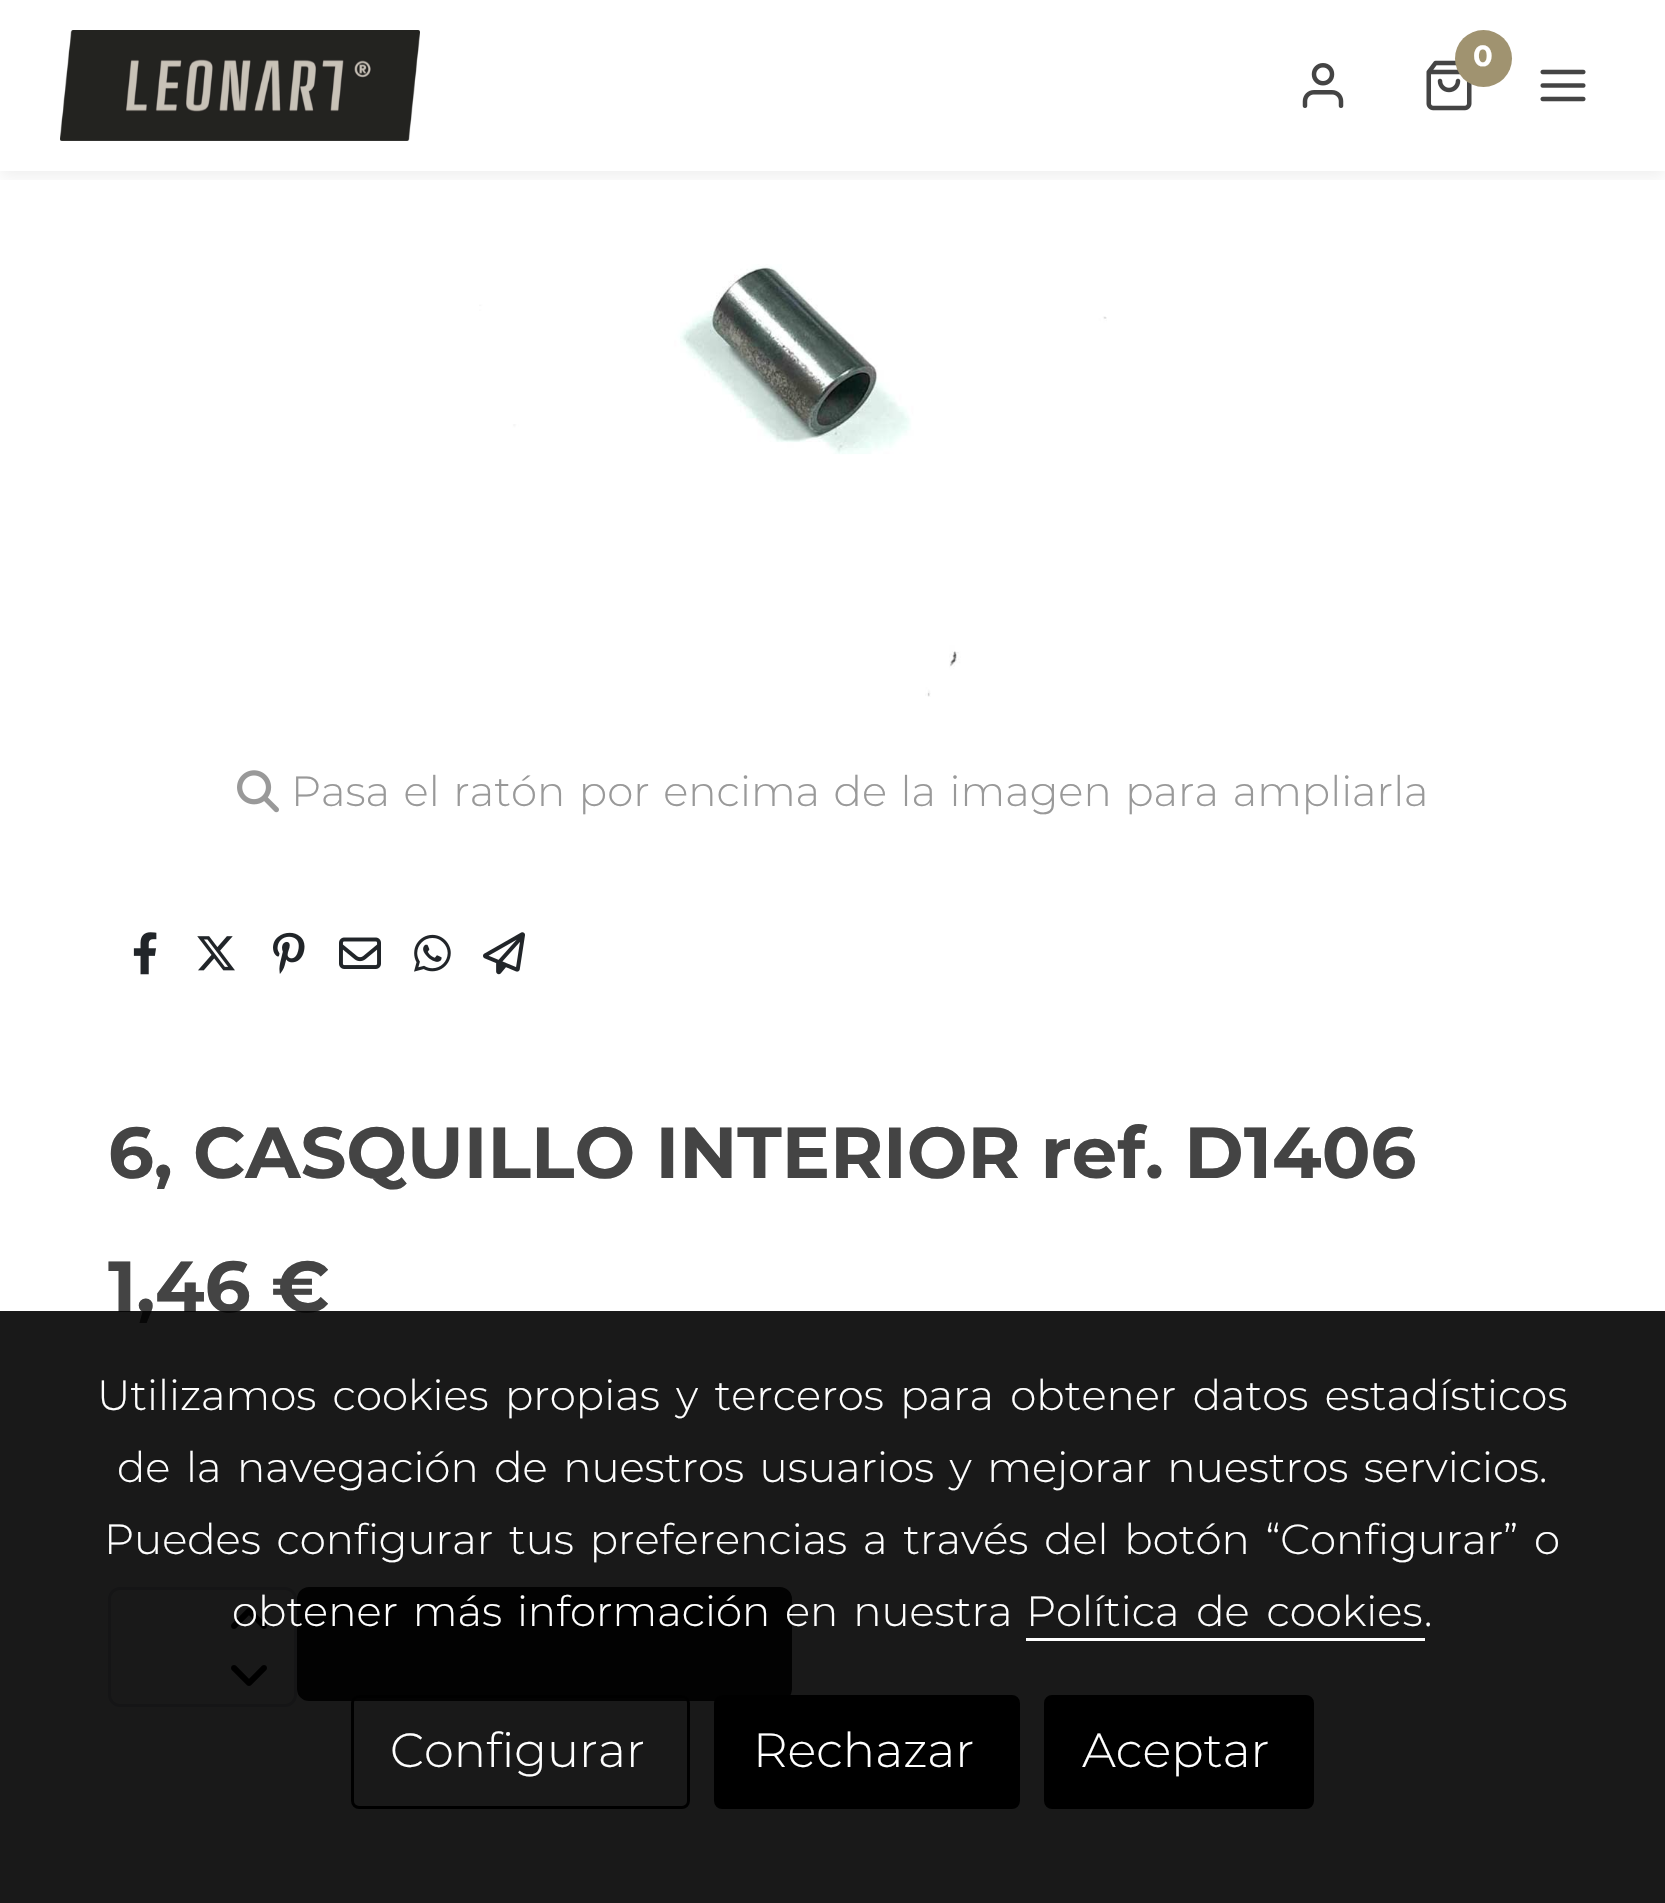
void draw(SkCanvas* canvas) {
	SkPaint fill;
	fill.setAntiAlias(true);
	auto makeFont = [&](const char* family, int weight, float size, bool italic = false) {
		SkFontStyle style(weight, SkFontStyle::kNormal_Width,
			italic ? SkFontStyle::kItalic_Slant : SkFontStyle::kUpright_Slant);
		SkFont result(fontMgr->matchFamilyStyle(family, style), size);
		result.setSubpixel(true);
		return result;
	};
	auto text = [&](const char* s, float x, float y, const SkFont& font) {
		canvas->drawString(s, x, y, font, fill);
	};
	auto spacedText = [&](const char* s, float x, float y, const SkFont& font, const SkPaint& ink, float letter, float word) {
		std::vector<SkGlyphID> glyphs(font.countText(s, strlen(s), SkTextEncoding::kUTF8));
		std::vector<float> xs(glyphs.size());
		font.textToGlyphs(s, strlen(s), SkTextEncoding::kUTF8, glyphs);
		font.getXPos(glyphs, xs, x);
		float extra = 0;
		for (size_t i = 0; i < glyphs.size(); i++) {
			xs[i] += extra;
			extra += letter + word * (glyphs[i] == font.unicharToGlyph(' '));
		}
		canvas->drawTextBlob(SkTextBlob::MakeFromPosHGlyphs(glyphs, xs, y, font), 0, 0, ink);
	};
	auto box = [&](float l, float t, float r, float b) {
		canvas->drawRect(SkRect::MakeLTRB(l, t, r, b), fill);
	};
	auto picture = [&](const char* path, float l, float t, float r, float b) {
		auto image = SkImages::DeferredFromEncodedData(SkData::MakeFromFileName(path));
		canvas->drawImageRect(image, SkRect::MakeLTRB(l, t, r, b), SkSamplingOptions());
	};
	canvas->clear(0xFFFFFFFF);
	canvas->save();
	canvas->clipRect(SkRect::MakeLTRB(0, 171, 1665, 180));
	fill.setColor(0x0F000000);
	fill.setMaskFilter(SkMaskFilter::MakeBlur(kNormal_SkBlurStyle, 7.5f));
	canvas->drawRect(SkRect::MakeLTRB(0, 6, 1665, 177), fill);
	fill.setMaskFilter(nullptr);
	canvas->restore();
	picture("image0.png", 60, 30, 420, 141);
	picture("image1.png", 1426, 60, 1472, 111);
	fill.setColor(0xFFA09370);
	canvas->drawCircle(1483.5f, 58.5f, 28.5f, fill);
	picture("image2.png", 1302, 63, 1344, 108);
	picture("image3.png", 1540, 69, 1586, 102);
	picture("image4.png", 479, 264, 1107, 697);
	picture("image5.png", 237, 770, 279, 813);
	picture("image6.png", 133, 932, 157, 975);
	picture("image7.png", 197, 936, 235, 971);
	picture("image8.png", 273, 932, 305, 974);
	picture("image9.png", 339, 937, 381, 969);
	picture("image10.png", 414, 934, 451, 972);
	picture("image11.png", 483, 932, 525, 975);
	fill.setStyle(SkPaint::kStroke_Style);
	fill.setStrokeWidth(3);
	fill.setColor(0xFFCED4DA);
	canvas->drawRoundRect(SkRect::MakeLTRB(109.5f, 1588.5f, 295.5f, 1705.5f), 10.5f, 10.5f, fill);
	picture("image12.png", 231, 1608, 267, 1629);
	picture("image13.png", 231, 1665, 267, 1686);
	fill.setStyle(SkPaint::kFill_Style);
	fill.setColor(0xFF131313);
	canvas->drawRoundRect(SkRect::MakeLTRB(298.5f, 1588.5f, 790.5f, 1699.5f), 10.5f, 10.5f, fill);
	fill.setStyle(SkPaint::kStroke_Style);
	canvas->drawRoundRect(SkRect::MakeLTRB(298.5f, 1588.5f, 790.5f, 1699.5f), 10.5f, 10.5f, fill);
	fill.setStyle(SkPaint::kFill_Style);
	fill.setColor(0xFFF8F9FA);
	box(36, 1755, 1629, 1903);
	auto font1 = makeFont("Montserrat", 700, 29);
	fill.setColor(0xFFFFFFFF);
	text("0", 1473, 66, font1);
	auto font2 = makeFont("Montserrat", 300, 42);
	fill.setColor(0xFF999999);
	spacedText("Pasa el ratón por encima de la imagen para ampliarla", 291, 806, font2, fill, 0, 2.75f);
	auto font3 = makeFont("Montserrat", 700, 72);
	fill.setColor(0xFF444444);
	text("6, CASQUILLO INTERIOR ref. D1406", 108, 1178, font3);
	text("1,46 €", 108, 1312, font3);
	fill.setColor(0xE6000000);
	box(0, 1311, 1665, 1903);
	fill.setColor(0xFFFFFFFF);
	spacedText("Utilizamos cookies propias y terceros para obtener datos estadísticos", 97, 1410, font2, fill, 0, 5.5f);
	spacedText("de la navegación de nuestros usuarios y mejorar nuestros servicios.", 117, 1482, font2, fill, 0, 4.75f);
	spacedText("Puedes configurar tus preferencias a través del botón “Configurar” o", 104, 1554, font2, fill, 0, 5);
	spacedText("obtener más información en nuestra", 232, 1626, font2, fill, 0, 4);
	spacedText("Política de cookies", 1026, 1626, font2, fill, 0, 6);
	text(".", 1424, 1626, font2);
	box(1026, 1638, 1425, 1641);
	fill.setStyle(SkPaint::kStroke_Style);
	fill.setColor(0xFF000000);
	canvas->drawRoundRect(SkRect::MakeLTRB(352.5f, 1696.5f, 688.5f, 1807.5f), 6.5f, 6.5f, fill);
	auto font4 = makeFont("Montserrat", 300, 48);
	fill.setStyle(SkPaint::kFill_Style);
	fill.setColor(0xFFFFFFFF);
	text("Configurar", 390, 1767, font4);
	fill.setColor(0xFF000000);
	canvas->drawRoundRect(SkRect::MakeLTRB(715.5f, 1696.5f, 1018.5f, 1807.5f), 6.5f, 6.5f, fill);
	fill.setStyle(SkPaint::kStroke_Style);
	canvas->drawRoundRect(SkRect::MakeLTRB(715.5f, 1696.5f, 1018.5f, 1807.5f), 6.5f, 6.5f, fill);
	fill.setStyle(SkPaint::kFill_Style);
	fill.setColor(0xFFFFFFFF);
	text("Rechazar", 753, 1767, font4);
	fill.setColor(0xFF000000);
	canvas->drawRoundRect(SkRect::MakeLTRB(1045.5f, 1696.5f, 1312.5f, 1807.5f), 6.5f, 6.5f, fill);
	fill.setStyle(SkPaint::kStroke_Style);
	canvas->drawRoundRect(SkRect::MakeLTRB(1045.5f, 1696.5f, 1312.5f, 1807.5f), 6.5f, 6.5f, fill);
	fill.setStyle(SkPaint::kFill_Style);
	fill.setColor(0xFFFFFFFF);
	text("Aceptar", 1082, 1767, font4);
}
